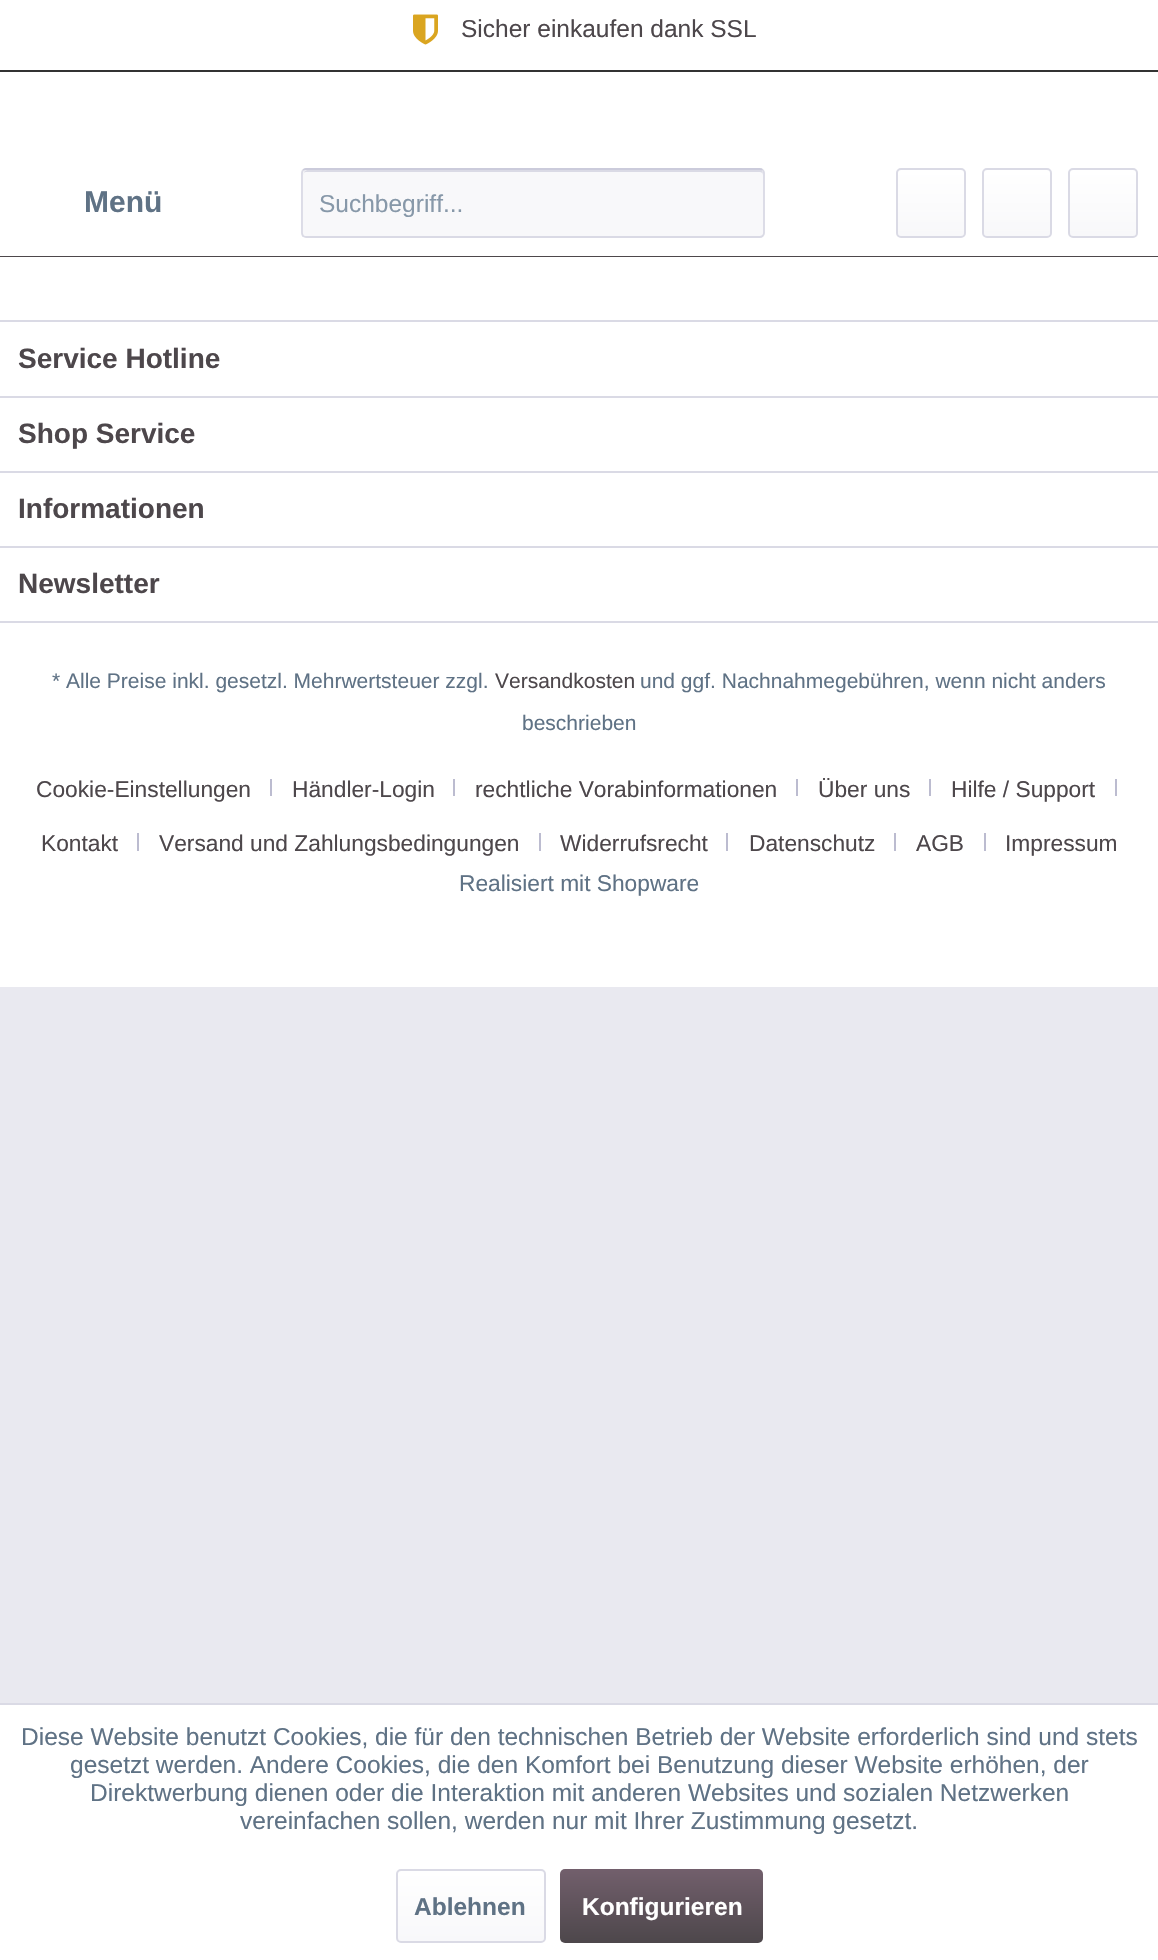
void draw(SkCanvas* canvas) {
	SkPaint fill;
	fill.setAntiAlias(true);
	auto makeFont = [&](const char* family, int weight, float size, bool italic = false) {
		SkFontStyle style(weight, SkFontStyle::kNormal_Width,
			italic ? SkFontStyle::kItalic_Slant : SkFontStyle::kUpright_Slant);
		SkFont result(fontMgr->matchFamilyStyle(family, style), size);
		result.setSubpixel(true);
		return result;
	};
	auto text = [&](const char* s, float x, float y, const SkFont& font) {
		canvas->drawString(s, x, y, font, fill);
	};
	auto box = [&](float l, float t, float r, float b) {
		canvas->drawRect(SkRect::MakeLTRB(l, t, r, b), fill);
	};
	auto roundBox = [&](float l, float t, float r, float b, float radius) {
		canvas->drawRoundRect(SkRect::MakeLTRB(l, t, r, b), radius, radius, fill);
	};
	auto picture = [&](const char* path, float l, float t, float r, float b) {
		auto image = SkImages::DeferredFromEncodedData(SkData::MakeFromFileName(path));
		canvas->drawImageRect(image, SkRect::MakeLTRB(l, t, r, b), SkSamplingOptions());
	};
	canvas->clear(0xFFE9E9F0);
	fill.setColor(0xFFFFFFFF);
	box(0, 0, 1158, 256);
	fill.setColor(0xFF4D474B);
	box(0, 256, 1158, 257);
	fill.setColor(0xFF333333);
	box(0, 70, 1158, 72);
	picture("image0.png", 413, 14, 438, 45);
	fill.setColor(0xFFF8F8FA);
	roundBox(301, 168, 765, 238, 5);
	fill.setColor(0xFFDADAE5);
	canvas->drawPath(SkPathBuilder().moveTo(306, 172).lineTo(760, 172).cubicTo(761, 172, 763, 173, 763, 175).cubicTo(763, 172, 762, 170, 759, 170).lineTo(307, 170).lineTo(305, 171).lineTo(304, 172).lineTo(303, 175).cubicTo(303, 173, 304, 172, 306, 172).close().detach(), fill);
	fill.setStyle(SkPaint::kStroke_Style);
	fill.setStrokeWidth(1.8f);
	fill.setColor(0xFFCBCBDB);
	canvas->drawPath(SkPathBuilder().moveTo(303, 170).cubicTo(304, 169.5f, 305, 169, 306, 169).lineTo(759.5f, 169).cubicTo(760.5f, 169, 762, 169.5f, 762.5f, 170).detach(), fill);
	fill.setColor(0xFFDADAE5);
	canvas->drawPath(SkPathBuilder().moveTo(762.5f, 170).cubicTo(763.5f, 171, 764, 172, 764, 173).lineTo(764, 233).cubicTo(764, 234, 763.5f, 235, 762.5f, 236).cubicTo(762, 236.5f, 760.5f, 237, 759.5f, 237).lineTo(306, 237).cubicTo(305, 237, 304, 236.5f, 303, 236).cubicTo(302.5f, 235, 302, 234, 302, 233).lineTo(302, 173).cubicTo(302, 172, 302.5f, 171, 303, 170).detach(), fill);
	fill.setStyle(SkPaint::kFill_Style);
	{
		const SkColor colors[] = {0xFFFFFFFF, 0xFFF8F8FA};
		const float stops[] = {0, 1};
		const SkPoint ends[] = {{931, 170}, {931, 236}};
		fill.setShader(SkGradientShader::MakeLinear(ends, colors, stops, 2, SkTileMode::kClamp));
		fill.setAlpha(255);
	}
	roundBox(898, 170, 964, 236, 4);
	fill.setStyle(SkPaint::kStroke_Style);
	fill.setStrokeWidth(2);
	fill.setShader(nullptr);
	fill.setColor(0xFFDADAE5);
	canvas->drawRoundRect(SkRect::MakeLTRB(897, 169, 965, 237), 4, 4, fill);
	fill.setStyle(SkPaint::kFill_Style);
	{
		const SkColor colors[] = {0xFFFFFFFF, 0xFFF8F8FA};
		const float stops[] = {0, 1};
		const SkPoint ends[] = {{1017, 170}, {1017, 236}};
		fill.setShader(SkGradientShader::MakeLinear(ends, colors, stops, 2, SkTileMode::kClamp));
		fill.setAlpha(255);
	}
	roundBox(984, 170, 1050, 236, 4);
	fill.setStyle(SkPaint::kStroke_Style);
	fill.setShader(nullptr);
	fill.setColor(0xFFDADAE5);
	canvas->drawRoundRect(SkRect::MakeLTRB(983, 169, 1051, 237), 4, 4, fill);
	fill.setStyle(SkPaint::kFill_Style);
	{
		const SkColor colors[] = {0xFFFFFFFF, 0xFFF8F8FA};
		const float stops[] = {0, 1};
		const SkPoint ends[] = {{1103, 170}, {1103, 236}};
		fill.setShader(SkGradientShader::MakeLinear(ends, colors, stops, 2, SkTileMode::kClamp));
		fill.setAlpha(255);
	}
	roundBox(1069, 170, 1136, 236, 4);
	fill.setStyle(SkPaint::kStroke_Style);
	fill.setShader(nullptr);
	fill.setColor(0xFFDADAE5);
	canvas->drawRoundRect(SkRect::MakeLTRB(1069, 169, 1137, 237), 4, 4, fill);
	fill.setStyle(SkPaint::kFill_Style);
	fill.setColor(0xFFFFFFFF);
	box(0, 257, 1158, 320);
	box(0, 322, 1158, 987);
	fill.setColor(0xFFDADAE5);
	box(0, 320, 1158, 322);
	box(0, 396, 1158, 398);
	box(0, 471, 1158, 473);
	box(0, 546, 1158, 548);
	box(0, 621, 1158, 623);
	fill.setColor(0xFFBCBCD0);
	box(270, 779, 272, 796);
	box(453, 779, 455, 796);
	box(796, 779, 798, 796);
	box(929, 779, 931, 796);
	box(1115, 779, 1117, 796);
	box(137, 833, 139, 851);
	box(539, 833, 541, 851);
	box(726, 833, 728, 851);
	box(894, 833, 896, 851);
	box(984, 833, 986, 851);
	fill.setColor(0xFFFFFFFF);
	box(0, 1705, 1158, 1960);
	fill.setColor(0xFFDADAE5);
	box(0, 1703, 1158, 1705);
	{
		const SkColor colors[] = {0xFFFFFFFF, 0xFFF8F8FA};
		const float stops[] = {0, 1};
		const SkPoint ends[] = {{471, 1871}, {471, 1941}};
		fill.setShader(SkGradientShader::MakeLinear(ends, colors, stops, 2, SkTileMode::kClamp));
		fill.setAlpha(255);
	}
	roundBox(397, 1871, 544, 1941, 4);
	fill.setStyle(SkPaint::kStroke_Style);
	fill.setShader(nullptr);
	fill.setColor(0xFFDADAE5);
	canvas->drawRoundRect(SkRect::MakeLTRB(397, 1870, 545, 1942), 4, 4, fill);
	fill.setStyle(SkPaint::kFill_Style);
	{
		const SkColor colors[] = {0xFF725F6C, 0xFF4D474B};
		const float stops[] = {0, 1};
		const SkPoint ends[] = {{662, 1869}, {662, 1943}};
		fill.setShader(SkGradientShader::MakeLinear(ends, colors, stops, 2, SkTileMode::kClamp));
		fill.setAlpha(255);
	}
	roundBox(560, 1869, 763, 1943, 5);
	auto font1 = makeFont("Liberation Sans", 400, 24.5f);
	fill.setShader(nullptr);
	fill.setColor(0xFF4D474B);
	text("Sicher einkaufen dank SSL", 461, 37, font1);
	auto font2 = makeFont("Liberation Sans", 700, 30);
	fill.setColor(0xFF5F7285);
	text("Menü", 84, 212, font2);
	fill.setColor(0xFF8798A9);
	text("Suchbegriff...", 319, 212, font1);
	auto font3 = makeFont("Liberation Sans", 700, 28);
	fill.setColor(0xFF4D474B);
	text("Service Hotline", 18, 368, font3);
	text("Shop Service", 18, 443, font3);
	text("Informationen", 18, 518, font3);
	text("Newsletter", 18, 593, font3);
	auto font4 = makeFont("Liberation Sans", 400, 21);
	fill.setColor(0xFF5F7285);
	text("* Alle Preise inkl. gesetzl. Mehrwertsteuer zzgl.", 52, 688, font4);
	fill.setColor(0xFF4D474B);
	text("Versandkosten", 495, 688, font4);
	fill.setColor(0xFF5F7285);
	text("und ggf. Nachnahmegebühren, wenn nicht anders", 640, 688, font4);
	text("beschrieben", 522, 730, font4);
	auto font5 = makeFont("Liberation Sans", 400, 22.75f);
	fill.setColor(0xFF4D474B);
	text("Cookie-Einstellungen", 36, 797, font5);
	text("Händler-Login", 292, 797, font5);
	text("rechtliche Vorabinformationen", 475, 797, font5);
	text("Über uns", 818, 797, font5);
	text("Hilfe / Support", 951, 797, font5);
	text("Kontakt", 41, 851, font5);
	text("Versand und Zahlungsbedingungen", 159, 851, font5);
	text("Widerrufsrecht", 560, 851, font5);
	text("Datenschutz", 749, 851, font5);
	text("AGB", 916, 851, font5);
	text("Impressum", 1005, 851, font5);
	fill.setColor(0xFF5F7285);
	text("Realisiert mit Shopware", 459, 891, font5);
	text("Diese Website benutzt Cookies, die für den technischen Betrieb der Website erforderlich sind und stets", 21, 1745, font1);
	text("gesetzt werden. Andere Cookies, die den Komfort bei Benutzung dieser Website erhöhen, der", 70, 1773, font1);
	text("Direktwerbung dienen oder die Interaktion mit anderen Websites und sozialen Netzwerken", 90, 1801, font1);
	text("vereinfachen sollen, werden nur mit Ihrer Zustimmung gesetzt.", 240, 1829, font1);
	auto font6 = makeFont("Liberation Sans", 700, 24.5f);
	text("Ablehnen", 414, 1915, font6);
	fill.setColor(0xFFFFFFFF);
	text("Konfigurieren", 582, 1915, font6);
}
